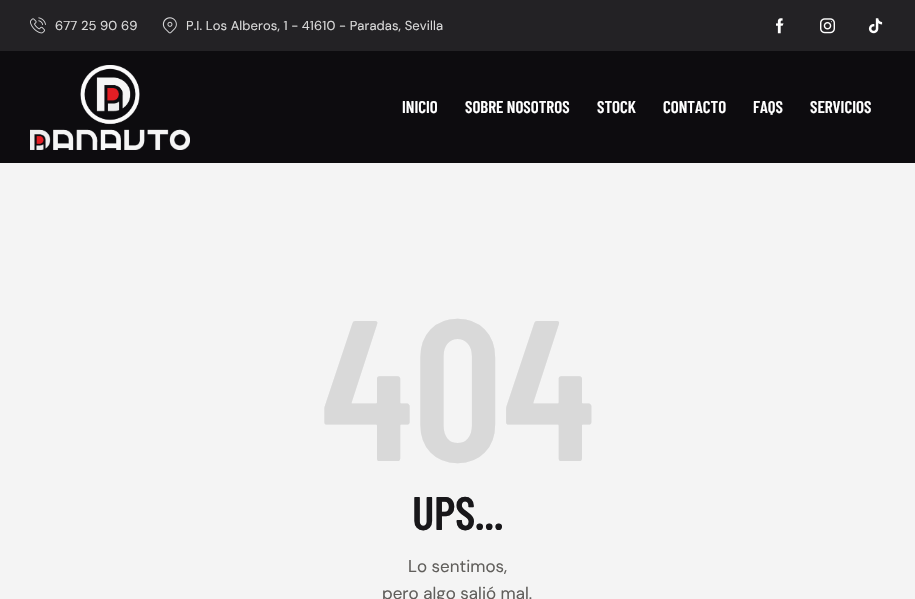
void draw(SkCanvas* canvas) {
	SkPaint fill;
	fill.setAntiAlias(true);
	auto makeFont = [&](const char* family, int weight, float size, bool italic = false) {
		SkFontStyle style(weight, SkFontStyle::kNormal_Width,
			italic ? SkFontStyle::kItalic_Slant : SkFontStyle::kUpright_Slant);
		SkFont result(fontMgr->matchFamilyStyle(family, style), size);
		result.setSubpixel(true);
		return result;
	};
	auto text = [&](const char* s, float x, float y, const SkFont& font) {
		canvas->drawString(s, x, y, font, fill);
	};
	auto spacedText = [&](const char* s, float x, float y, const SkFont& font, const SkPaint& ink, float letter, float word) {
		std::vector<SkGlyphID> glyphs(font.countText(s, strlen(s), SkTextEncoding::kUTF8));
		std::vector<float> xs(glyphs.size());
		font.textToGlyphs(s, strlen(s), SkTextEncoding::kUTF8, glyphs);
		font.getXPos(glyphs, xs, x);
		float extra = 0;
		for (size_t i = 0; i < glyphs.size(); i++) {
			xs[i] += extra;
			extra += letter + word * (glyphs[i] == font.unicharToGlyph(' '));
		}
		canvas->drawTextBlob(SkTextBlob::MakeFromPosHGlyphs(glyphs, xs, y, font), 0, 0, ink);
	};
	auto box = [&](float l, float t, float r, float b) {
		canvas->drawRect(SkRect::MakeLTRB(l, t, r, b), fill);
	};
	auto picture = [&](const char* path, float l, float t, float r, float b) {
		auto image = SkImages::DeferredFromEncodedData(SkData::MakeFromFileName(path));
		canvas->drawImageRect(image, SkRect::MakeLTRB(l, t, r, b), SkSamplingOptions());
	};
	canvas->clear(0xFFF4F4F4);
	fill.setColor(0xFF232225);
	box(0, 0, 915, 51);
	picture("image0.png", 30, 17, 46, 34);
	picture("image1.png", 162, 17, 177, 34);
	picture("image2.png", 776, 18, 784, 34);
	picture("image3.png", 820, 18, 835, 34);
	picture("image4.png", 868, 18, 883, 34);
	fill.setColor(0xFF0D0C0F);
	box(0, 51, 915, 163);
	picture("image5.png", 30, 65, 190, 150);
	auto font1 = makeFont("DM Sans", 400, 13);
	fill.setColor(0xFFD9D9D9);
	spacedText("677 25 90 69", 55, 30, font1, fill, 0.1f, 0);
	spacedText("P.I. Los Alberos, 1 - 41610 - Paradas, Sevilla", 186, 30, font1, fill, 0.1f, 0);
	auto font2 = makeFont("Barlow Condensed", 600, 17);
	fill.setColor(0xFFFFFFFF);
	text("INICIO", 402, 113, font2);
	text("SOBRE NOSOTROS", 465, 113, font2);
	text("STOCK", 597, 113, font2);
	text("CONTACTO", 663, 113, font2);
	text("FAQS", 753, 113, font2);
	text("SERVICIOS", 810, 113, font2);
	auto font3 = makeFont("Barlow Condensed", 600, 200);
	fill.setColor(0xFFD9D9D9);
	text("404", 321, 461, font3);
	auto font4 = makeFont("Barlow Condensed", 600, 47);
	fill.setColor(0xFF18171A);
	spacedText("UPS...", 412, 530, font4, fill, -0.5f, 0);
	auto font5 = makeFont("DM Sans", 400, 17);
	fill.setColor(0xFF615F5C);
	text("Lo sentimos,", 408, 572, font5);
	text("pero algo salió mal.", 382, 599, font5);
}
